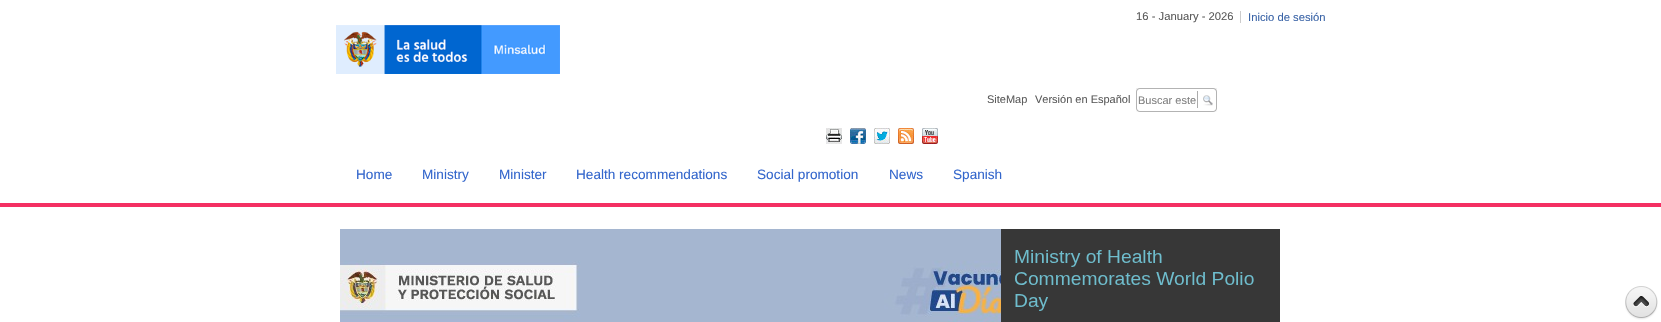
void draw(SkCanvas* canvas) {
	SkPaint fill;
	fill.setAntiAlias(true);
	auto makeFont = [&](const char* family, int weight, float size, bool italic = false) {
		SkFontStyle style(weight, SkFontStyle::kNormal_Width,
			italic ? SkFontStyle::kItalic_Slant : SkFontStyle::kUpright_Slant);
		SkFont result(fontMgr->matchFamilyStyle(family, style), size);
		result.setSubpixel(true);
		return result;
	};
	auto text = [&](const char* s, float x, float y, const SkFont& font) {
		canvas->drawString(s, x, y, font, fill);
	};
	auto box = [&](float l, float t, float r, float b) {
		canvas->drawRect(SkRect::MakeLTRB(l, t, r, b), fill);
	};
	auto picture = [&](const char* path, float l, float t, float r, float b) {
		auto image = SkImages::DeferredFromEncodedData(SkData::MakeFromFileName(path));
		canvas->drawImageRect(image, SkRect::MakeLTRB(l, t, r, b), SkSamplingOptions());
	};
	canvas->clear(0xFFFFFFFF);
	picture("image0.png", 336, 25, 560, 74);
	fill.setColor(0xFFCCCCCC);
	box(1240, 11, 1241, 23);
	picture("image1.png", 1136, 88, 1198, 112);
	picture("image2.png", 1198, 88, 1217, 112);
	picture("image3.png", 826, 128, 842, 144);
	picture("image4.png", 850, 128, 866, 144);
	picture("image5.png", 874, 128, 890, 144);
	picture("image6.png", 898, 128, 914, 144);
	picture("image7.png", 922, 128, 938, 144);
	fill.setColor(0xFFF42F63);
	box(0, 203, 1661, 207);
	picture("image8.png", 340, 229, 1280, 322);
	picture("image9.png", 1625, 286, 1658, 320);
	auto font1 = makeFont("Liberation Sans", 400, 11.25f);
	fill.setColor(0xFF5B5B5B);
	text("16 - January - 2026", 1136, 20, font1);
	fill.setColor(0xFF3862A6);
	text("Inicio de sesión", 1248, 21, font1);
	auto font2 = makeFont("Liberation Sans", 400, 11);
	fill.setColor(0xFF5B5B5B);
	text("SiteMap", 987, 103, font2);
	text("Versión en Español", 1035, 103, font2);
	fill.setColor(0xFF818181);
	text("Buscar este", 1138, 104, font2);
	auto font3 = makeFont("Liberation Sans", 400, 13.6f);
	fill.setColor(0xFF3366CC);
	text("Home", 356, 179, font3);
	text("Ministry", 422, 179, font3);
	text("Minister", 499, 179, font3);
	text("Health recommendations", 576, 179, font3);
	text("Social promotion", 757, 179, font3);
	text("News", 889, 179, font3);
	text("Spanish", 953, 179, font3);
}
